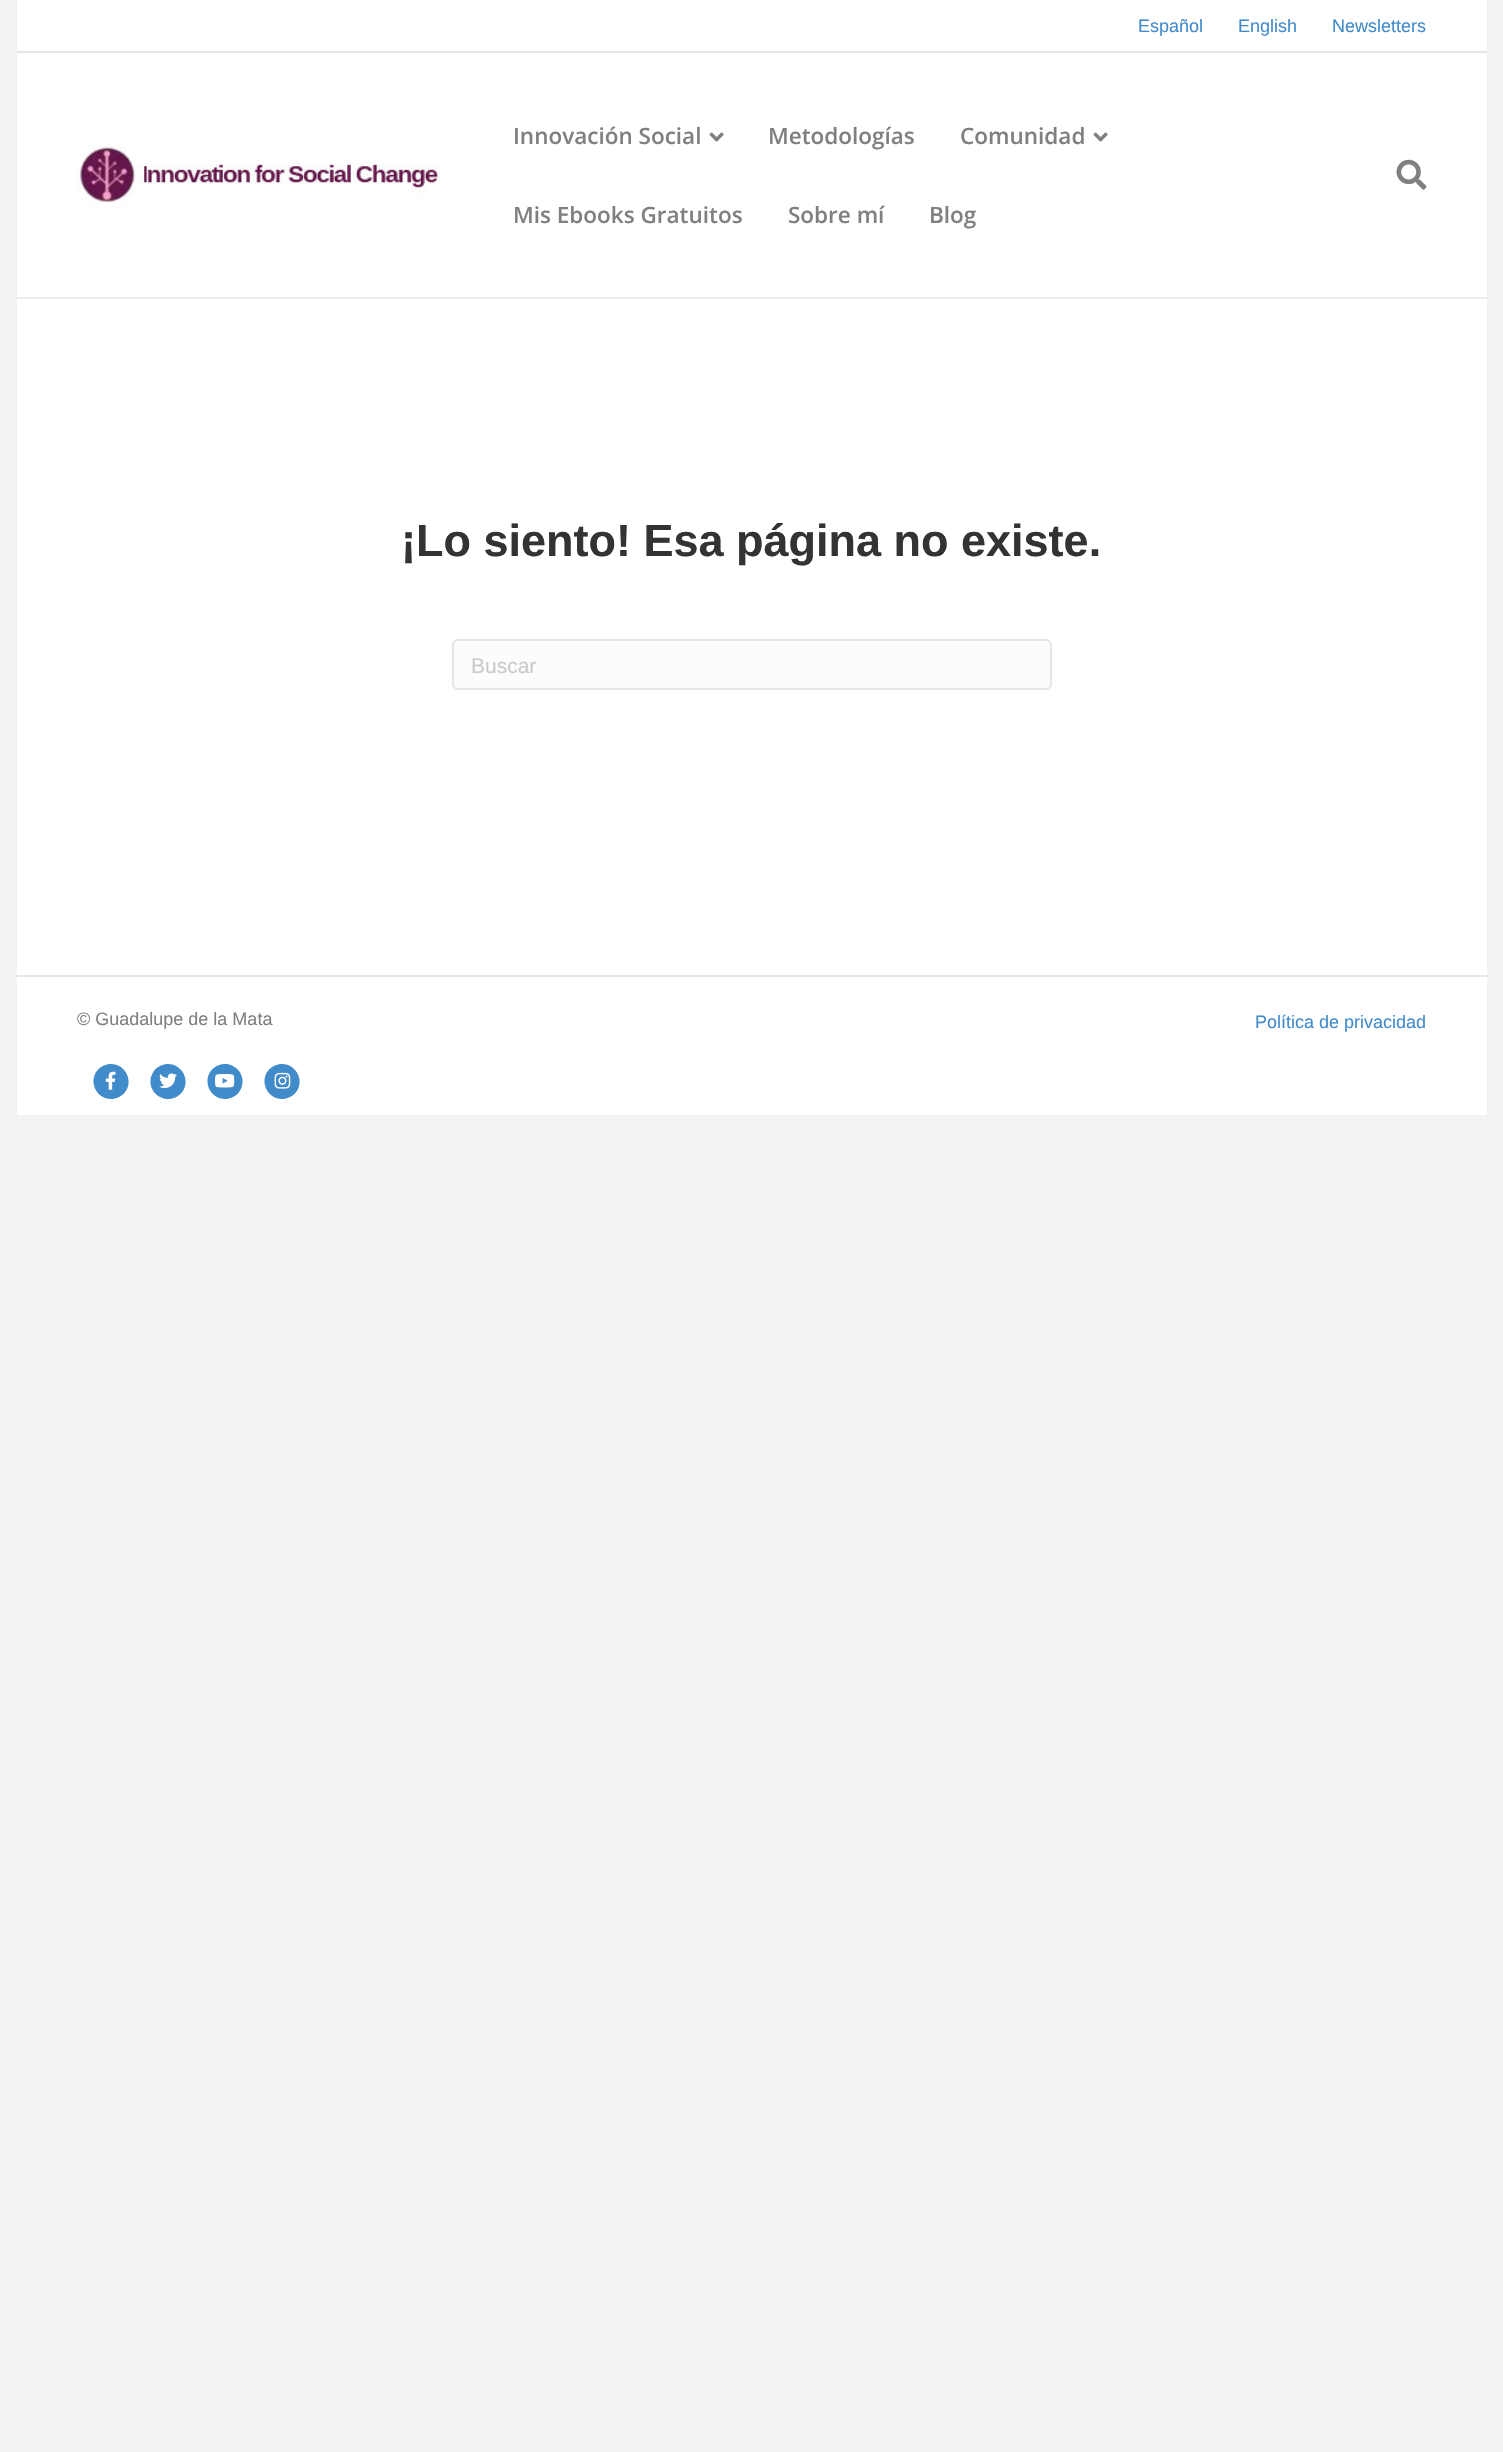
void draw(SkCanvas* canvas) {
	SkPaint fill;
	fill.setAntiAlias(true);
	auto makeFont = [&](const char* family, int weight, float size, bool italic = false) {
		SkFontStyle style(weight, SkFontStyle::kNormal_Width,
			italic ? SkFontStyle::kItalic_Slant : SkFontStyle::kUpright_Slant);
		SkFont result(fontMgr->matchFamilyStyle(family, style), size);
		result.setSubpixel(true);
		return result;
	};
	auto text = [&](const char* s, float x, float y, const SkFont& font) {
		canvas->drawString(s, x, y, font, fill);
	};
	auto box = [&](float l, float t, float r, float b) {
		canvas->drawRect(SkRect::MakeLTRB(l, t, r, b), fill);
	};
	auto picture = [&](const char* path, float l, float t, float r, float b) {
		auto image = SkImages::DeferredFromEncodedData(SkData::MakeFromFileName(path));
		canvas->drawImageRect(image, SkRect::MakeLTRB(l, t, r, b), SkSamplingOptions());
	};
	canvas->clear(0xFFF2F2F2);
	fill.setColor(0xFFFFFFFF);
	box(17, 0, 1487, 51);
	fill.setColor(0xFFE6E6E6);
	box(17, 51, 1487, 53);
	fill.setColor(0xFFFFFFFF);
	box(17, 53, 1487, 297);
	fill.setColor(0xFFEEEEEE);
	box(17, 297, 1487, 299);
	picture("image0.png", 77, 145, 441, 203);
	picture("image1.png", 709, 132, 724, 142);
	picture("image1.png", 1093, 132, 1108, 142);
	picture("image2.png", 1396, 159, 1427, 190);
	fill.setColor(0xFFFFFFFF);
	box(17, 299, 1487, 975);
	fill.setColor(0xFFFCFCFC);
	canvas->drawRoundRect(SkRect::MakeLTRB(453, 640, 1051, 689), 5, 5, fill);
	fill.setStyle(SkPaint::kStroke_Style);
	fill.setStrokeWidth(2);
	fill.setColor(0xFFE6E6E6);
	canvas->drawRoundRect(SkRect::MakeLTRB(453, 640, 1051, 689), 5, 5, fill);
	fill.setStyle(SkPaint::kFill_Style);
	fill.setColor(0xFFFFFFFF);
	box(17, 977, 1487, 1115);
	fill.setColor(0xFFE6E6E6);
	box(17, 975, 1487, 977);
	fill.setColor(0xFF428BCA);
	canvas->drawPath(SkPathBuilder().moveTo(98.5f, 1069).cubicTo(101.5f, 1066.5f, 105, 1064.5f, 109, 1064).cubicTo(125.5f, 1062.5f, 135, 1082, 123.5f, 1094).cubicTo(120.5f, 1096.5f, 117, 1098.5f, 113, 1099).cubicTo(96.5f, 1100.5f, 87, 1081, 98.5f, 1069).close().detach(), fill);
	picture("image3.png", 105, 1071, 116, 1090);
	canvas->drawPath(SkPathBuilder().moveTo(155.5f, 1069).cubicTo(158.5f, 1066.5f, 162, 1064.5f, 166, 1064).cubicTo(182.5f, 1062.5f, 192, 1082, 180.5f, 1094).cubicTo(168.5f, 1105.5f, 149, 1096, 150.5f, 1079.5f).cubicTo(151, 1075.5f, 153, 1072, 155.5f, 1069).close().detach(), fill);
	picture("image4.png", 159, 1073, 177, 1089);
	canvas->drawPath(SkPathBuilder().moveTo(212.5f, 1069).cubicTo(224.5f, 1057.5f, 244, 1067, 242.5f, 1083.5f).cubicTo(242, 1087.5f, 240, 1091, 237.5f, 1094).cubicTo(234.5f, 1096.5f, 231, 1098.5f, 227, 1099).cubicTo(210.5f, 1100.5f, 201, 1081, 212.5f, 1069).close().detach(), fill);
	picture("image5.png", 215, 1074, 235, 1088);
	canvas->drawPath(SkPathBuilder().moveTo(269.5f, 1069).cubicTo(272.5f, 1066.5f, 276, 1064.5f, 280, 1064).cubicTo(296.5f, 1062.5f, 306, 1082, 294.5f, 1094).cubicTo(291.5f, 1096.5f, 288, 1098.5f, 284, 1099).cubicTo(267.5f, 1100.5f, 258, 1081, 269.5f, 1069).close().detach(), fill);
	picture("image6.png", 274, 1072, 291, 1089);
	auto font1 = makeFont("Liberation Sans", 400, 18);
	text("Español", 1138, 32, font1);
	text("English", 1238, 32, font1);
	text("Newsletters", 1332, 32, font1);
	auto font2 = makeFont("Open Sans", 600, 22.5f);
	fill.setColor(0xFF808080);
	text("Innovación Social", 513, 144, font2);
	text("Metodologías", 768, 144, font2);
	text("Comunidad", 960, 144, font2);
	text("Mis Ebooks Gratuitos", 513, 223, font2);
	text("Sobre mí", 788, 223, font2);
	text("Blog", 929, 223, font2);
	auto font3 = makeFont("Liberation Sans", 700, 45);
	fill.setColor(0xFF333333);
	text("¡Lo siento! Esa página no existe.", 401, 556, font3);
	auto font4 = makeFont("Liberation Sans", 400, 21);
	fill.setColor(0xFFCACACA);
	text("Buscar", 471, 673, font4);
	fill.setColor(0xFF808080);
	text("© Guadalupe de la Mata", 77, 1025, font1);
	fill.setColor(0xFF428BCA);
	text("Política de privacidad", 1255, 1028, font1);
}
